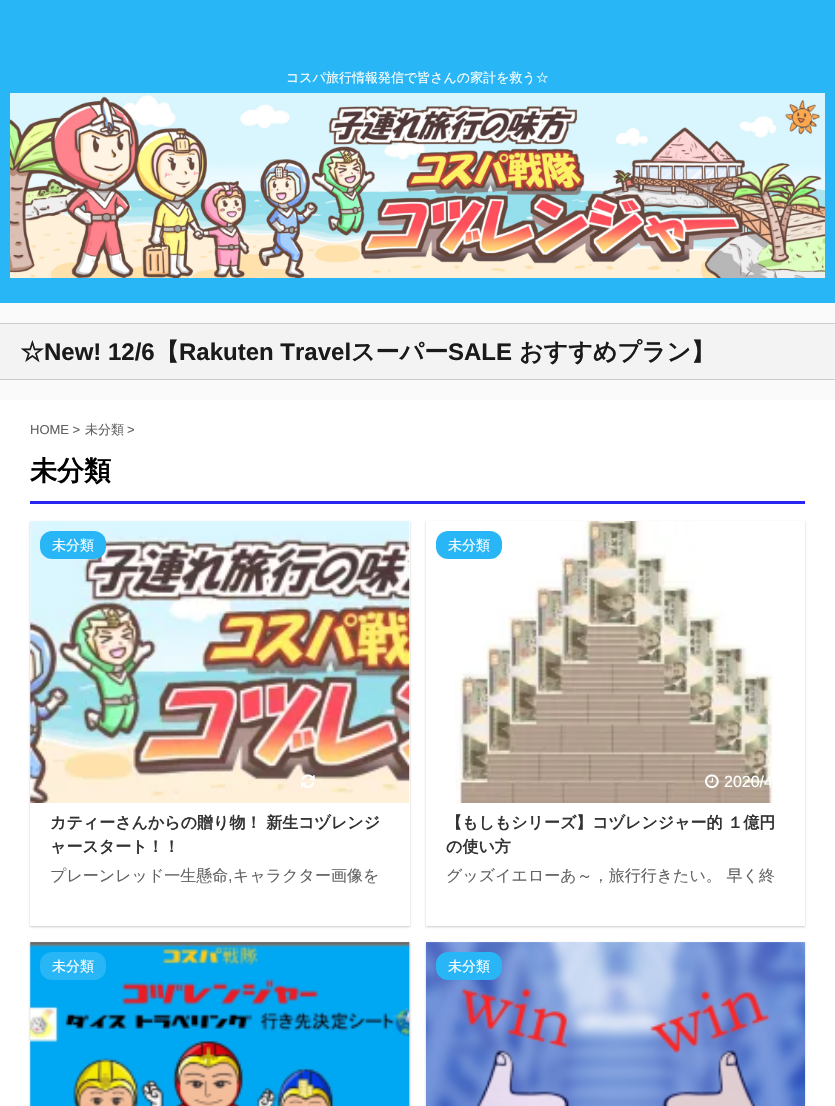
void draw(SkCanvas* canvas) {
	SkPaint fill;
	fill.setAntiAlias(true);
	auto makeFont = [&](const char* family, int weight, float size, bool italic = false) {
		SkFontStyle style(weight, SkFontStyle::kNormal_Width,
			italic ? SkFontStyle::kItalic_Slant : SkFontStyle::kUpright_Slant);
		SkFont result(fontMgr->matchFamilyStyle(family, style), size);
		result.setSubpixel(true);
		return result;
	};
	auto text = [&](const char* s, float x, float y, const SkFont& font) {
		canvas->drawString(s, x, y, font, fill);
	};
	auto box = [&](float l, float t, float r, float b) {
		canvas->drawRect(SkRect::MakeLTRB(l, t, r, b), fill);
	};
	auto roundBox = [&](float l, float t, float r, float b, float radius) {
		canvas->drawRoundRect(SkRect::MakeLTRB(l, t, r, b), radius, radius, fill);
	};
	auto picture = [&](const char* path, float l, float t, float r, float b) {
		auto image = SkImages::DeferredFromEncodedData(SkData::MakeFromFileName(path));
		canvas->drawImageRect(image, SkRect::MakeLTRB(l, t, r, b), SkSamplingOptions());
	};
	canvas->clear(0xFFFAFAFA);
	fill.setColor(0xFF29B6F6);
	box(0, 0, 835, 303);
	picture("image0.png", 10, 93, 825, 278);
	fill.setColor(0xFFF3F3F3);
	box(0, 324, 835, 379);
	fill.setColor(0xFFCCCCCC);
	box(0, 323, 835, 324);
	box(0, 379, 835, 380);
	fill.setColor(0xFFFFFFFF);
	box(0, 400, 835, 1106);
	fill.setColor(0xFF2A26F2);
	box(30, 501, 805, 504);
	canvas->save();
	canvas->clipPath(SkPathBuilder(SkPathFillType::kEvenOdd).moveTo(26, 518).lineTo(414, 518).lineTo(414, 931).lineTo(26, 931).close().moveTo(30, 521).lineTo(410, 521).lineTo(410, 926).lineTo(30, 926).close().detach(), true);
	fill.setColor(0x33000000);
	fill.setMaskFilter(SkMaskFilter::MakeBlur(kNormal_SkBlurStyle, 1));
	canvas->drawRect(SkRect::MakeLTRB(30, 522, 410, 927), fill);
	fill.setMaskFilter(nullptr);
	canvas->restore();
	picture("image1.png", 30, 521, 410, 803);
	fill.setColor(0xFF29B6F6);
	roundBox(40, 531, 106, 559, 12);
	picture("image2.png", 301, 774, 315, 788);
	canvas->save();
	canvas->clipPath(SkPathBuilder(SkPathFillType::kEvenOdd).moveTo(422, 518).lineTo(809, 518).lineTo(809, 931).lineTo(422, 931).close().moveTo(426, 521).lineTo(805, 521).lineTo(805, 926).lineTo(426, 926).close().detach(), true);
	fill.setColor(0x33000000);
	fill.setMaskFilter(SkMaskFilter::MakeBlur(kNormal_SkBlurStyle, 1));
	canvas->drawRect(SkRect::MakeLTRB(426, 522, 805, 927), fill);
	fill.setMaskFilter(nullptr);
	canvas->restore();
	picture("image3.png", 455, 521, 773, 803);
	fill.setColor(0xFF29B6F6);
	roundBox(436, 531, 502, 559, 12);
	picture("image4.png", 705, 774, 719, 789);
	fill.setColor(0x33000000);
	fill.setMaskFilter(SkMaskFilter::MakeBlur(kNormal_SkBlurStyle, 1));
	canvas->drawRect(SkRect::MakeLTRB(30, 943, 410, 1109), fill);
	fill.setMaskFilter(nullptr);
	picture("image5.png", 30, 942, 410, 1106);
	fill.setColor(0xFF29B6F6);
	roundBox(40, 952, 106, 980, 12);
	fill.setColor(0x33000000);
	fill.setMaskFilter(SkMaskFilter::MakeBlur(kNormal_SkBlurStyle, 1));
	canvas->drawRect(SkRect::MakeLTRB(426, 943, 805, 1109), fill);
	fill.setMaskFilter(nullptr);
	picture("image6.png", 426, 942, 805, 1106);
	fill.setColor(0xFF29B6F6);
	roundBox(436, 952, 502, 980, 12);
	auto font1 = makeFont("WenQuanYi Zen Hei", 500, 13);
	fill.setColor(0xFFFFFFFF);
	text("コスパ旅行情報発信で皆さんの家計を救う☆", 286, 82, font1);
	auto font2 = makeFont("WenQuanYi Zen Hei", 700, 24);
	fill.setColor(0xFF1A1A1A);
	text("☆", 20, 360, font2);
	auto font3 = makeFont("Liberation Sans", 700, 24);
	text("New! 12/6", 44, 360, font3);
	text("【", 155, 360, font2);
	text("Rakuten Travel", 179, 360, font3);
	text("スーパー", 351, 360, font2);
	text("SALE", 448, 360, font3);
	text("おすすめプラン】", 519, 360, font2);
	auto font4 = makeFont("Liberation Sans", 400, 13);
	fill.setColor(0xFF616161);
	text("HOME >", 30, 434, font4);
	text("未分類", 85, 434, font1);
	text(">", 127, 434, font4);
	auto font5 = makeFont("WenQuanYi Zen Hei", 700, 27);
	fill.setColor(0xFF000000);
	text("未分類", 30, 480, font5);
	auto font6 = makeFont("WenQuanYi Zen Hei", 500, 14);
	fill.setColor(0xFFFFFFFF);
	text("未分類", 52, 550, font6);
	auto font7 = makeFont("WenQuanYi Zen Hei", 700, 16);
	fill.setColor(0xFF333333);
	text("カティーさんからの贈り物！ 新生コヅレンジ", 50, 828, font7);
	text("ャースタート！！", 50, 852, font7);
	auto font8 = makeFont("WenQuanYi Zen Hei", 500, 16);
	fill.setColor(0xFF616161);
	text("プレーンレッド一生懸命", 50, 881, font8);
	auto font9 = makeFont("Liberation Sans", 400, 16);
	text(",", 228, 881, font9);
	text("キャラクター画像を", 233, 881, font8);
	{
		const SkColor colors[] = {0x00FFFFFF, 0xFFFFFFFF};
		const float stops[] = {0, 1};
		const SkPoint ends[] = {{220, 879}, {220, 906}};
		fill.setShader(SkGradientShader::MakeLinear(ends, colors, stops, 2, SkTileMode::kClamp));
		fill.setAlpha(255);
	}
	box(54, 880, 375, 884);
	fill.setShader(nullptr);
	fill.setColor(0xFFFFFFFF);
	text("未分類", 448, 550, font6);
	text("2020/4", 724, 787, font9);
	fill.setColor(0xFF333333);
	text("【もしもシリーズ】コヅレンジャー的 １億円", 446, 828, font7);
	text("の使い方", 446, 852, font7);
	fill.setColor(0xFF616161);
	text("グッズイエローあ～，旅行行きたい。 早く終", 446, 881, font8);
	{
		const SkColor colors[] = {0x00FFFFFF, 0xFFFFFFFF};
		const float stops[] = {0, 1};
		const SkPoint ends[] = {{616, 879}, {616, 906}};
		fill.setShader(SkGradientShader::MakeLinear(ends, colors, stops, 2, SkTileMode::kClamp));
		fill.setAlpha(255);
	}
	box(447, 880, 771, 884);
	fill.setShader(nullptr);
	fill.setColor(0xFFFFFFFF);
	text("未分類", 52, 971, font6);
	text("未分類", 448, 971, font6);
}
